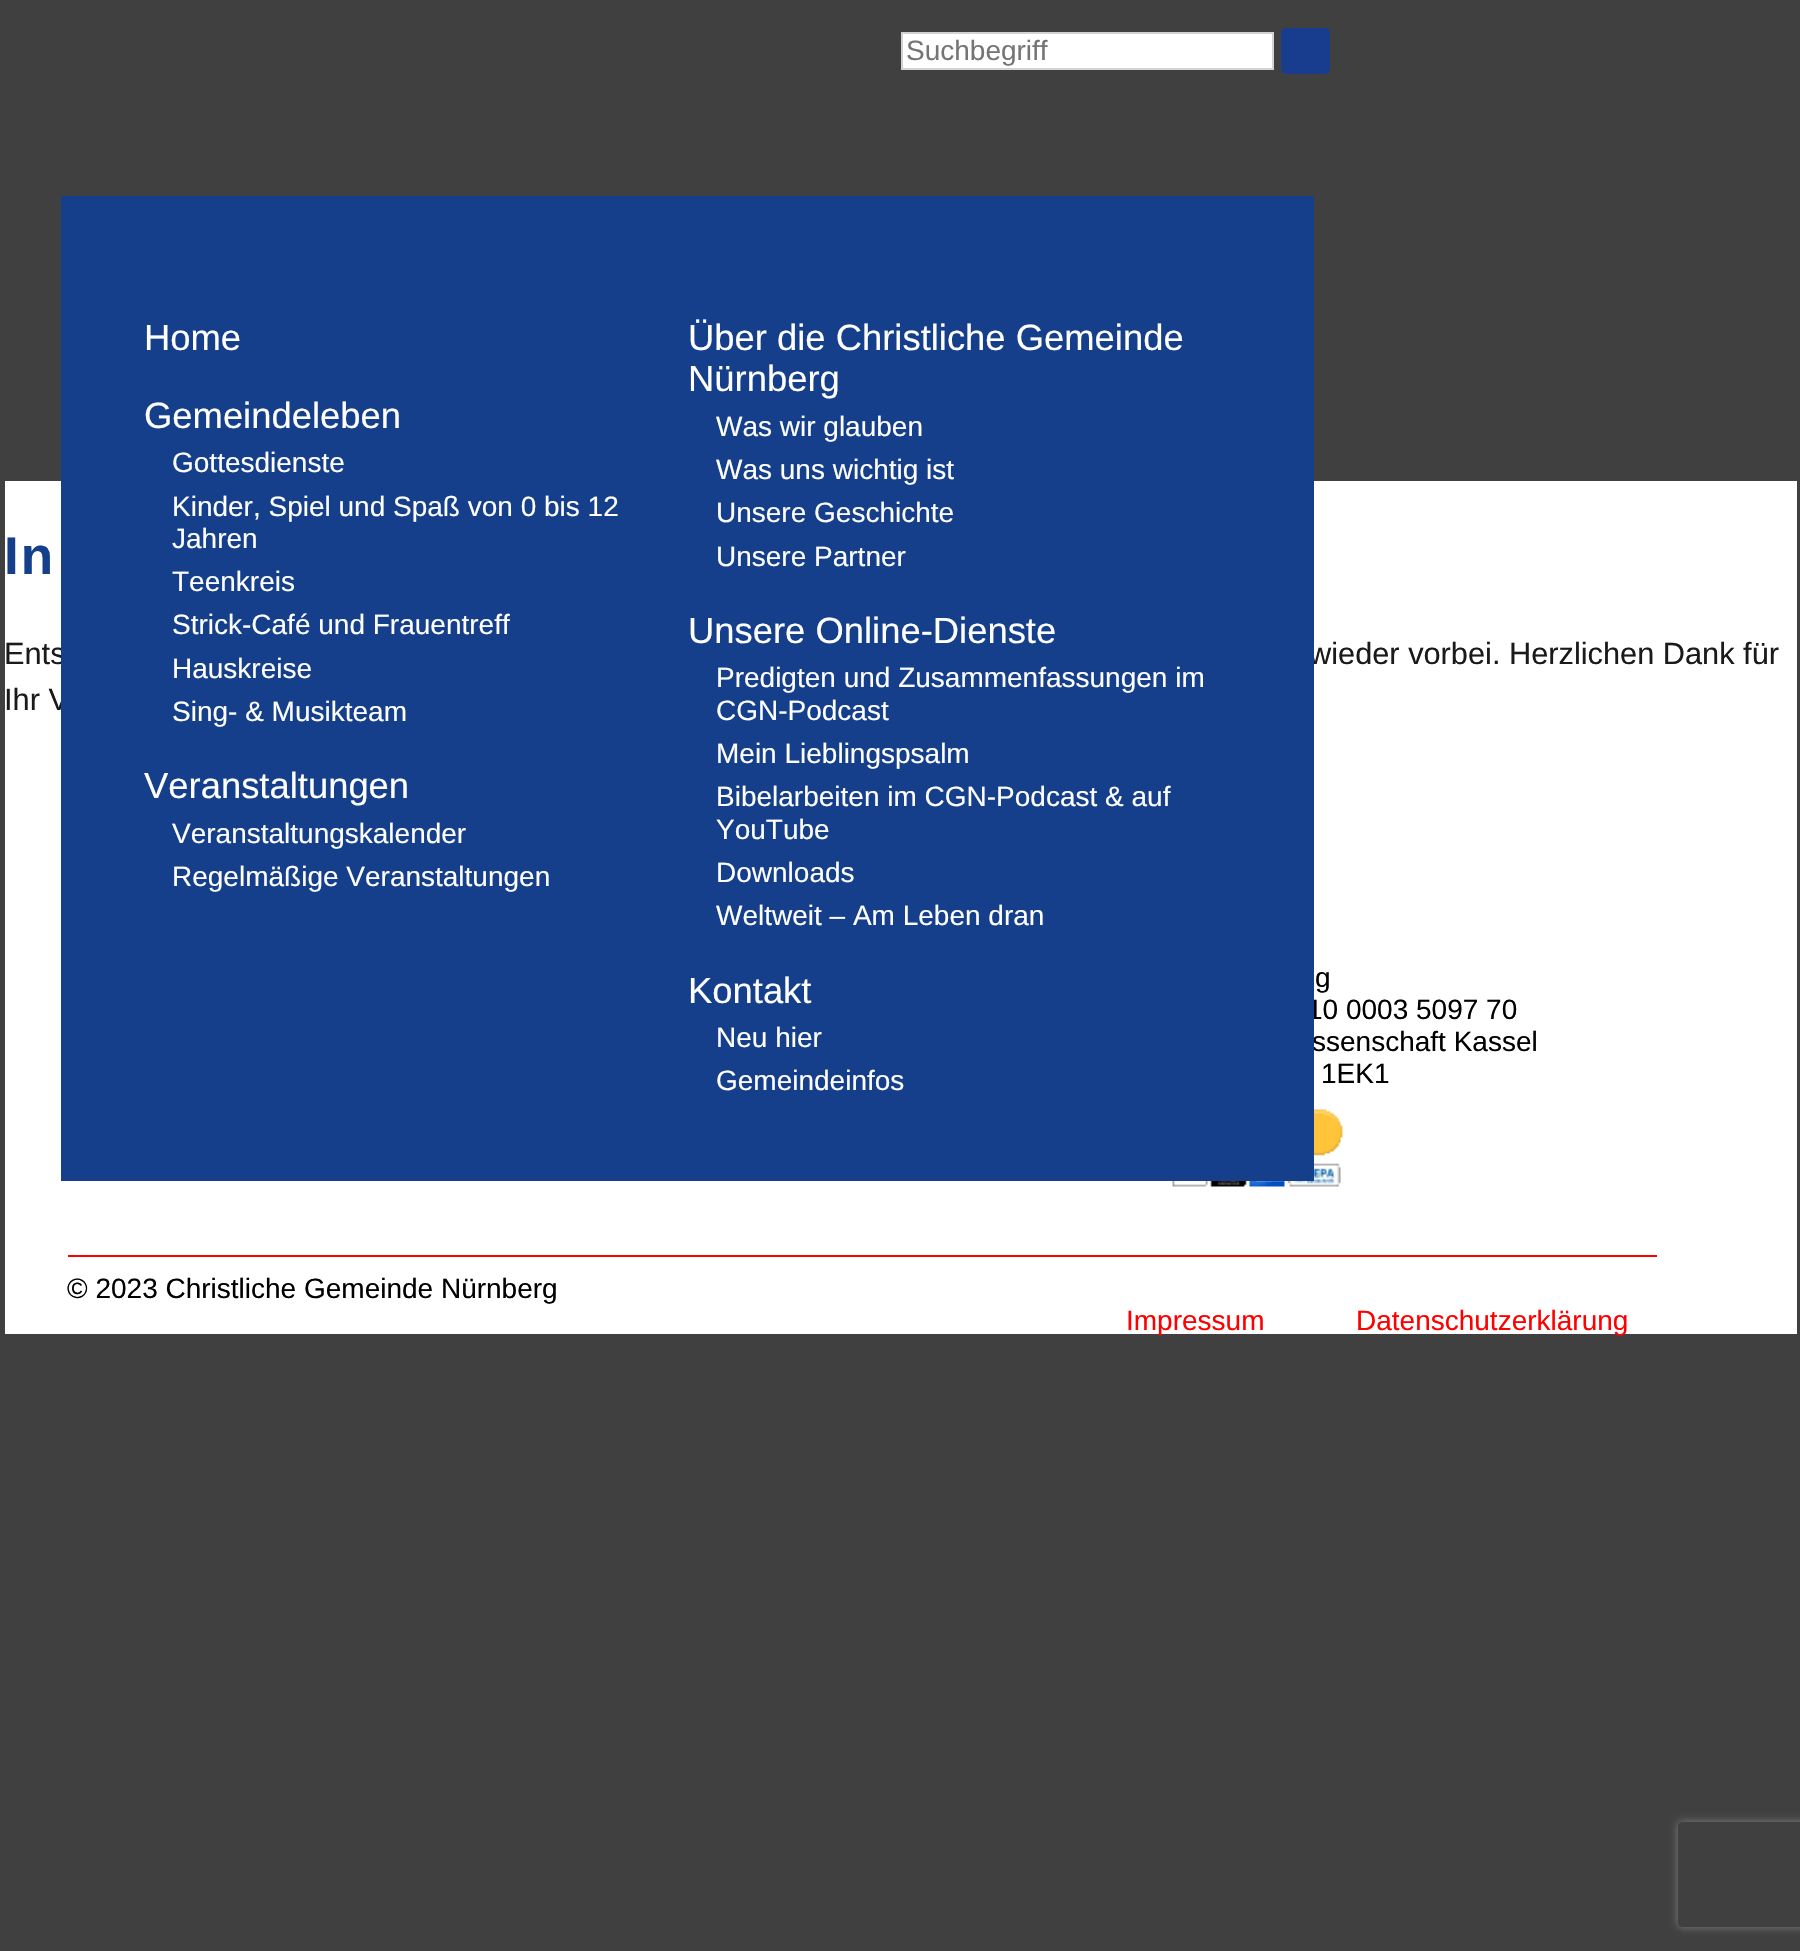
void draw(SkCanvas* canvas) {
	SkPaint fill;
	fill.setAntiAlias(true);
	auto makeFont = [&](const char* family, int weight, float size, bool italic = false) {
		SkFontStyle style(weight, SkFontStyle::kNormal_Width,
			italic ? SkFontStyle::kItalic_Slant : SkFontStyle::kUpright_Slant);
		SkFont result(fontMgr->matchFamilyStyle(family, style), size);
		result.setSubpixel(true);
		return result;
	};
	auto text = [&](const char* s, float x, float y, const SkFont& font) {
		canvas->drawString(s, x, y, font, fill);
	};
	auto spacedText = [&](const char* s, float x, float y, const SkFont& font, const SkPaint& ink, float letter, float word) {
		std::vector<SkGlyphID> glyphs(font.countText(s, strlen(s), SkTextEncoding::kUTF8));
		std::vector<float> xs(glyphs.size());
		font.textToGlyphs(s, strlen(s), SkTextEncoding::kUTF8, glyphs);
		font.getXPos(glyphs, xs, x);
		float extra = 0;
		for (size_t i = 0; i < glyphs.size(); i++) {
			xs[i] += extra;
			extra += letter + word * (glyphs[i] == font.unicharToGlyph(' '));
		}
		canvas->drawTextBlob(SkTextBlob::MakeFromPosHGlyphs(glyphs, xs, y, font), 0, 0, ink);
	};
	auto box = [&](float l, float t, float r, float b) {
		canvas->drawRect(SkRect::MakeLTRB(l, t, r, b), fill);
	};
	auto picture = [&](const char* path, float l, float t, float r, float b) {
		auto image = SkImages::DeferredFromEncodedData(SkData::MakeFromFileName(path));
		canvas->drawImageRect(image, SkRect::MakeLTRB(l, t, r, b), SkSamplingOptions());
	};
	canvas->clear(0xFF404040);
	fill.setColor(0xFFFFFFFF);
	canvas->drawRect(SkRect::MakeLTRB(902, 33, 1273, 69), fill);
	fill.setStyle(SkPaint::kStroke_Style);
	fill.setStrokeWidth(2);
	fill.setColor(0xFFD3D3D3);
	canvas->drawRect(SkRect::MakeLTRB(902, 33, 1273, 69), fill);
	fill.setStyle(SkPaint::kFill_Style);
	fill.setColor(0xFF183C8E);
	canvas->drawRoundRect(SkRect::MakeLTRB(1282, 29, 1329, 73), 4, 4, fill);
	fill.setStyle(SkPaint::kStroke_Style);
	canvas->drawRoundRect(SkRect::MakeLTRB(1282, 29, 1329, 73), 4, 4, fill);
	fill.setStyle(SkPaint::kFill_Style);
	fill.setColor(0xFFFFFFFF);
	box(5, 481, 1797, 1334);
	picture("image0.png", 1172, 1109, 1343, 1187);
	fill.setColor(0xFFFF0000);
	box(68, 1255, 1657, 1257);
	canvas->save();
	canvas->clipPath(SkPathBuilder(SkPathFillType::kEvenOdd).moveTo(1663, 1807).lineTo(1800, 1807).lineTo(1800, 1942).lineTo(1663, 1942).close().moveTo(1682, 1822).lineTo(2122, 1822).cubicTo(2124, 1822, 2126, 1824, 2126, 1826).lineTo(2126, 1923).cubicTo(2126, 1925, 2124, 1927, 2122, 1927).lineTo(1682, 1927).cubicTo(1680, 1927, 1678, 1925, 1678, 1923).lineTo(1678, 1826).cubicTo(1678, 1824, 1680, 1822, 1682, 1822).close().detach(), true);
	fill.setColor(0xFF808080);
	fill.setMaskFilter(SkMaskFilter::MakeBlur(kNormal_SkBlurStyle, 4.5f));
	canvas->drawRoundRect(SkRect::MakeLTRB(1678, 1822, 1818, 1927), 4, 4, fill);
	fill.setMaskFilter(nullptr);
	canvas->restore();
	auto font1 = makeFont("Liberation Sans", 400, 28);
	fill.setColor(0xFF757575);
	text("Suchbegriff", 906, 60, font1);
	auto font2 = makeFont("Liberation Sans", 700, 53);
	fill.setColor(0xFF153F8A);
	spacedText("In", 4, 574, font2, fill, 2, 0);
	auto font3 = makeFont("Liberation Sans", 400, 30.75f);
	fill.setColor(0xFF1A1A1A);
	text("Ents", 4, 664, font3);
	text("wieder vorbei. Herzlichen Dank für", 1309, 664, font3);
	text("Ihr V", 4, 710, font3);
	fill.setColor(0xFF000000);
	text("g", 1315, 987, font1);
	text("10 0003 5097 70", 1307, 1019, font1);
	text("ssenschaft Kassel", 1312, 1051, font1);
	fill.setColor(0xFF153F8A);
	box(61, 196, 1314, 1181);
	fill.setColor(0xFFFFFFFF);
	text("Gemeindeinfos", 716, 1090, font1);
	text("Neu hier", 716, 1047, font1);
	auto font4 = makeFont("Liberation Sans", 400, 36.4f);
	text("Kontakt", 688, 1003, font4);
	text("Weltweit – Am Leben dran", 716, 925, font1);
	text("Downloads", 716, 882, font1);
	text("YouTube", 716, 839, font1);
	text("Bibelarbeiten im CGN-Podcast & auf", 716, 806, font1);
	text("Mein Lieblingspsalm", 716, 763, font1);
	text("CGN-Podcast", 716, 720, font1);
	text("Predigten und Zusammenfassungen im", 716, 687, font1);
	text("Unsere Online-Dienste", 688, 643, font4);
	text("Unsere Partner", 716, 566, font1);
	text("Unsere Geschichte", 716, 522, font1);
	text("Was uns wichtig ist", 716, 479, font1);
	text("Was wir glauben", 716, 436, font1);
	text("Nürnberg", 688, 391, font4);
	text("Über die Christliche Gemeinde", 688, 350, font4);
	text("Regelmäßige Veranstaltungen", 172, 886, font1);
	text("Veranstaltungskalender", 172, 843, font1);
	text("Veranstaltungen", 144, 798, font4);
	text("Sing- & Musikteam", 172, 721, font1);
	text("Hauskreise", 172, 678, font1);
	text("Strick-Café und Frauentreff", 172, 634, font1);
	text("Teenkreis", 172, 591, font1);
	text("Jahren", 172, 548, font1);
	text("Kinder, Spiel und Spaß von 0 bis 12", 172, 516, font1);
	text("Gottesdienste", 172, 472, font1);
	text("Gemeindeleben", 144, 428, font4);
	text("Home", 144, 350, font4);
	fill.setColor(0xFF000000);
	text("1EK1", 1321, 1083, font1);
	text("© 2023 Christliche Gemeinde Nürnberg", 67, 1298, font1);
	fill.setColor(0xFFFF0000);
	text("Impressum", 1126, 1330, font1);
	text("Datenschutzerklärung", 1356, 1330, font1);
}
